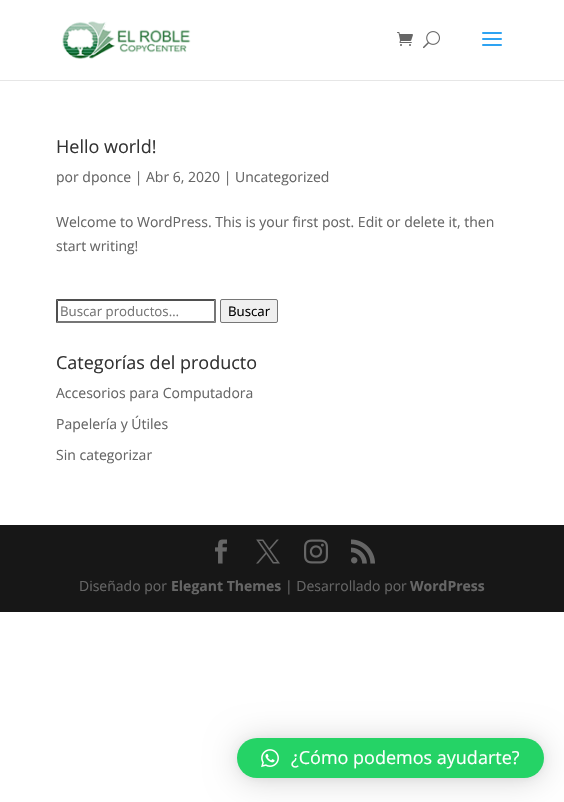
void draw(SkCanvas* canvas) {
	SkPaint fill;
	fill.setAntiAlias(true);
	auto makeFont = [&](const char* family, int weight, float size, bool italic = false) {
		SkFontStyle style(weight, SkFontStyle::kNormal_Width,
			italic ? SkFontStyle::kItalic_Slant : SkFontStyle::kUpright_Slant);
		SkFont result(fontMgr->matchFamilyStyle(family, style), size);
		result.setSubpixel(true);
		return result;
	};
	auto text = [&](const char* s, float x, float y, const SkFont& font) {
		canvas->drawString(s, x, y, font, fill);
	};
	auto box = [&](float l, float t, float r, float b) {
		canvas->drawRect(SkRect::MakeLTRB(l, t, r, b), fill);
	};
	auto roundBox = [&](float l, float t, float r, float b, float radius) {
		canvas->drawRoundRect(SkRect::MakeLTRB(l, t, r, b), radius, radius, fill);
	};
	auto picture = [&](const char* path, float l, float t, float r, float b) {
		auto image = SkImages::DeferredFromEncodedData(SkData::MakeFromFileName(path));
		canvas->drawImageRect(image, SkRect::MakeLTRB(l, t, r, b), SkSamplingOptions());
	};
	canvas->clear(0xFFFFFFFF);
	fill.setColor(0xFFE6E6E6);
	box(0, 80, 564, 81);
	picture("image0.png", 62, 21, 191, 59);
	picture("image1.png", 397, 32, 413, 46);
	picture("image2.png", 423, 31, 440, 49);
	picture("image3.png", 482, 32, 502, 46);
	fill.setColor(0xFF4F4F4F);
	canvas->drawPath(SkPathBuilder().moveTo(56, 299).lineTo(216, 299).lineTo(214, 301).lineTo(58, 301).close().detach(), fill);
	fill.setColor(0xFF767676);
	canvas->drawPath(SkPathBuilder().moveTo(216, 299).lineTo(216, 323).lineTo(214, 321).lineTo(214, 301).close().detach(), fill);
	canvas->drawPath(SkPathBuilder().moveTo(216, 323).lineTo(56, 323).lineTo(58, 321).lineTo(214, 321).close().detach(), fill);
	fill.setColor(0xFF4F4F4F);
	canvas->drawPath(SkPathBuilder().moveTo(56, 323).lineTo(56, 299).lineTo(58, 301).lineTo(58, 321).close().detach(), fill);
	fill.setColor(0xFFEFEFEF);
	canvas->drawRoundRect(SkRect::MakeLTRB(220.5f, 299.5f, 277.5f, 322.5f), 1.5f, 1.5f, fill);
	fill.setStyle(SkPaint::kStroke_Style);
	fill.setStrokeWidth(1);
	fill.setColor(0xFF767676);
	canvas->drawRoundRect(SkRect::MakeLTRB(220.5f, 299.5f, 277.5f, 322.5f), 1.5f, 1.5f, fill);
	fill.setStyle(SkPaint::kFill_Style);
	fill.setColor(0xFF171717);
	box(0, 525, 564, 612);
	picture("image4.png", 215, 539, 227, 564);
	picture("image5.png", 256, 539, 280, 564);
	picture("image6.png", 304, 539, 328, 564);
	picture("image7.png", 351, 539, 375, 564);
	fill.setColor(0x29000000);
	fill.setMaskFilter(SkMaskFilter::MakeBlur(kNormal_SkBlurStyle, 16));
	canvas->drawRoundRect(SkRect::MakeLTRB(237, 740, 544, 780), 20, 20, fill);
	fill.setMaskFilter(nullptr);
	fill.setColor(0x0F000000);
	fill.setMaskFilter(SkMaskFilter::MakeBlur(kNormal_SkBlurStyle, 3));
	canvas->drawRoundRect(SkRect::MakeLTRB(237, 739, 544, 779), 20, 20, fill);
	fill.setMaskFilter(nullptr);
	fill.setColor(0xFF25D366);
	roundBox(237, 738, 544, 778, 20);
	picture("image8.png", 261, 749, 279, 768);
	auto font1 = makeFont("Open Sans", 400, 18);
	fill.setColor(0xFF333333);
	text("Hello world!", 56, 153, font1);
	auto font2 = makeFont("Open Sans", 400, 14);
	fill.setColor(0xFF666666);
	text("por dponce | Abr 6, 2020 | Uncategorized", 56, 182, font2);
	text("Welcome to WordPress. This is your first post. Edit or delete it, then", 56, 227, font2);
	text("start writing!", 56, 251, font2);
	auto font3 = makeFont("Open Sans", 400, 13.25f);
	fill.setColor(0xFF757575);
	text("Buscar productos…", 60, 316, font3);
	fill.setColor(0xFF000000);
	text("Buscar", 228, 316, font3);
	fill.setColor(0xFF333333);
	text("Categorías del producto", 56, 369, font1);
	fill.setColor(0xFF666666);
	text("Accesorios para Computadora", 56, 398, font2);
	text("Papelería y Útiles", 56, 429, font2);
	text("Sin categorizar", 56, 460, font2);
	text("Diseñado por", 79, 591, font2);
	auto font4 = makeFont("Open Sans", 700, 14);
	text("Elegant Themes", 171, 591, font4);
	text("| Desarrollado por", 285, 591, font2);
	text("WordPress", 410, 591, font4);
	fill.setColor(0xFFFFFFFF);
	text("¿Cómo podemos ayudarte?", 291, 764, font1);
}
